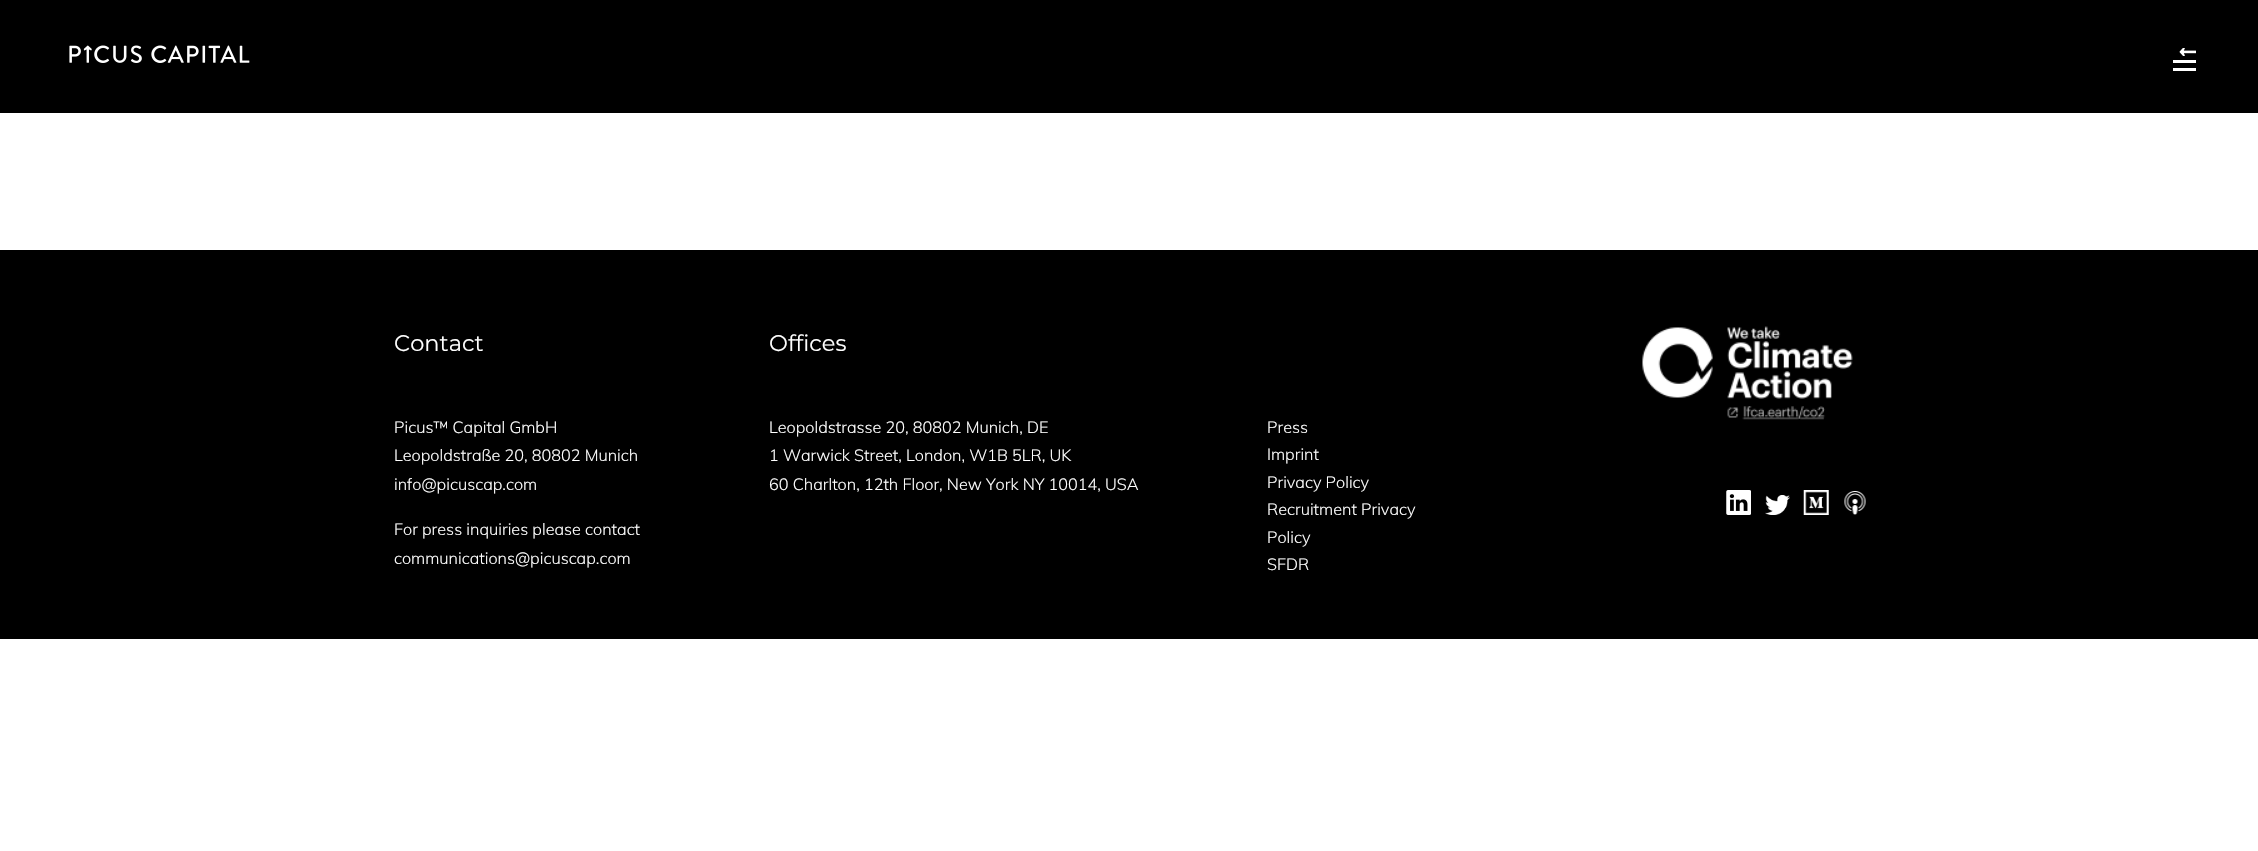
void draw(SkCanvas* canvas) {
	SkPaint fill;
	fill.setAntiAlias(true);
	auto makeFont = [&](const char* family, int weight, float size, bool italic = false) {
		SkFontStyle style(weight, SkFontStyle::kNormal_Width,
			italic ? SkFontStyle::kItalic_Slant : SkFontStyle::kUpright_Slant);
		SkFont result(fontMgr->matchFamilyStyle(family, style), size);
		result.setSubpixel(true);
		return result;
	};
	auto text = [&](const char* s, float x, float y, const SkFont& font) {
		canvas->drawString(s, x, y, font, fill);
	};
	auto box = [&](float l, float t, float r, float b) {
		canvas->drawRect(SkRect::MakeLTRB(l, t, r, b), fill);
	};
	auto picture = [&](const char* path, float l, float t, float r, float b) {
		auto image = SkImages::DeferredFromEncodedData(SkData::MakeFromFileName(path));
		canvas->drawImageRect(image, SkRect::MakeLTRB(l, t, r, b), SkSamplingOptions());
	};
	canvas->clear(0xFFFFFFFF);
	fill.setColor(0xFF000000);
	box(0, 0, 2258, 113);
	picture("image0.png", 69, 45, 250, 63);
	picture("image1.png", 2179, 48, 2196, 56);
	fill.setColor(0xFFFFFFFF);
	box(2173, 60, 2196, 63);
	box(2173, 68, 2196, 71);
	fill.setColor(0xFF000000);
	box(0, 250, 2258, 639);
	picture("image2.png", 1642, 326, 1853, 420);
	picture("image3.png", 1726, 490, 1751, 515);
	picture("image4.png", 1765, 495, 1790, 515);
	picture("image5.png", 1803, 490, 1829, 515);
	picture("image6.png", 1844, 491, 1866, 515);
	auto font1 = makeFont("Montserrat", 400, 22.5f);
	fill.setColor(0xFFFFFFFF);
	text("Contact", 394, 351, font1);
	auto font2 = makeFont("Muli", 300, 16.25f);
	text("Picus™ Capital GmbH", 394, 433, font2);
	text("Leopoldstraße 20, 80802 Munich", 394, 461, font2);
	text("info@picuscap.com", 394, 490, font2);
	text("For press inquiries please contact", 394, 535, font2);
	text("communications@picuscap.com", 394, 564, font2);
	text("Offices", 769, 351, font1);
	text("Leopoldstrasse 20, 80802 Munich, DE", 769, 433, font2);
	text("1 Warwick Street, London, W1B 5LR, UK", 769, 461, font2);
	text("60 Charlton, 12th Floor, New York NY 10014, USA", 769, 490, font2);
	text("Press", 1267, 433, font2);
	text("Imprint", 1267, 460, font2);
	text("Privacy Policy", 1267, 488, font2);
	text("Recruitment Privacy", 1267, 515, font2);
	text("Policy", 1267, 543, font2);
	text("SFDR", 1267, 570, font2);
}
